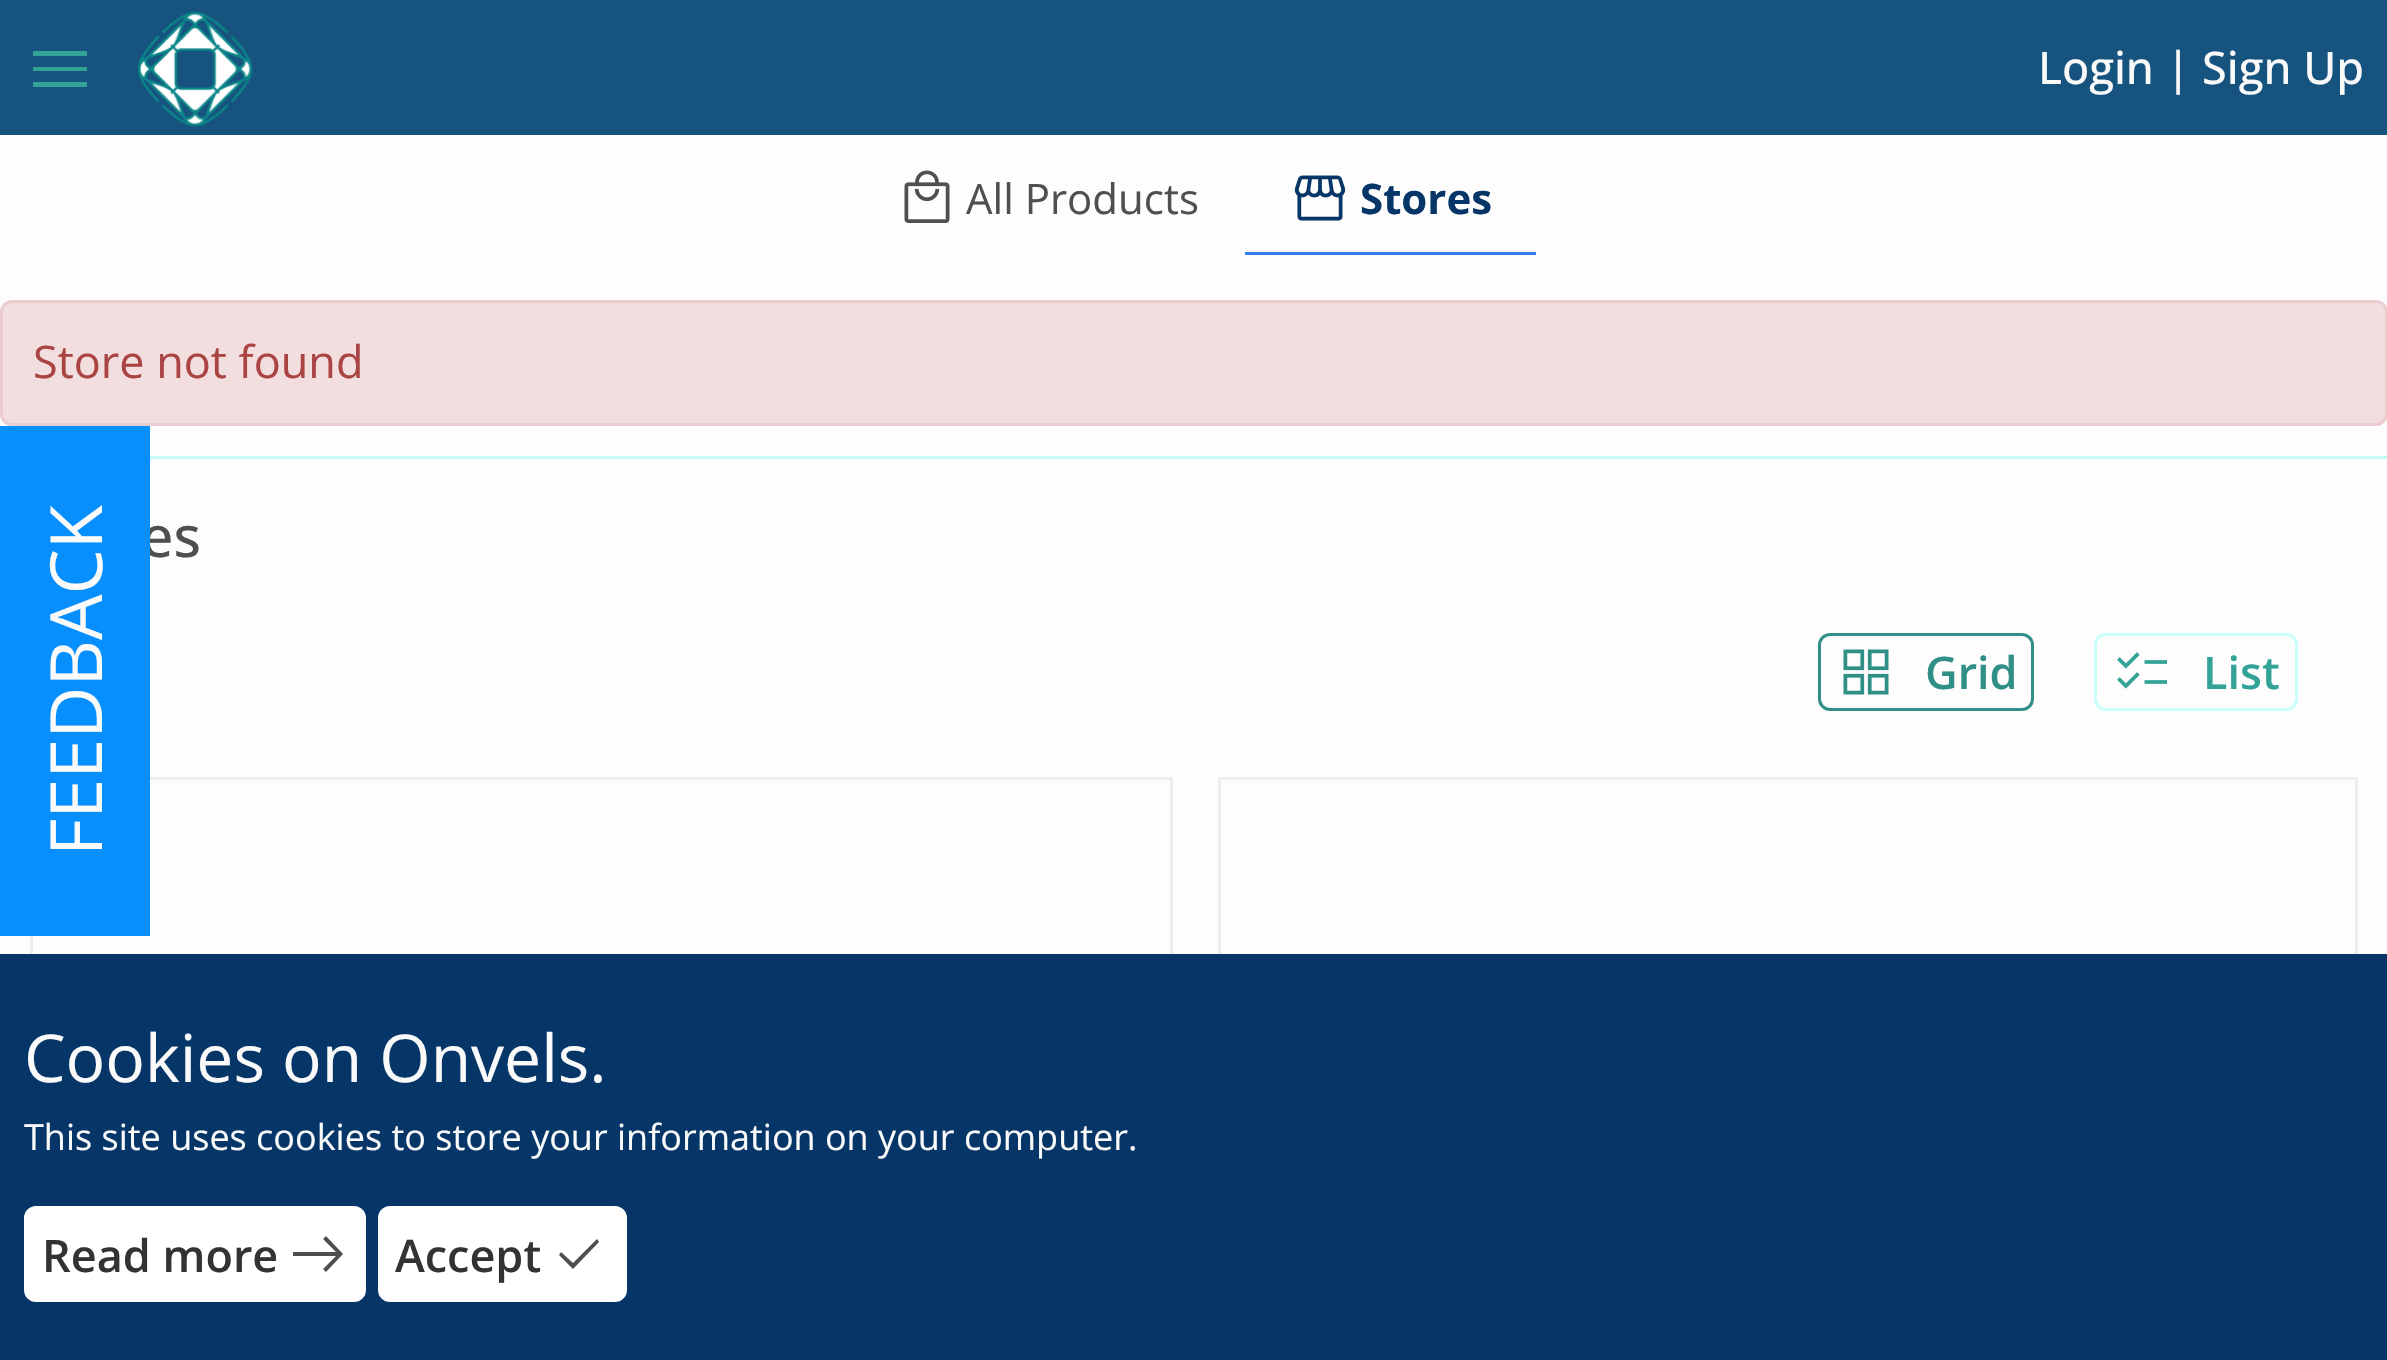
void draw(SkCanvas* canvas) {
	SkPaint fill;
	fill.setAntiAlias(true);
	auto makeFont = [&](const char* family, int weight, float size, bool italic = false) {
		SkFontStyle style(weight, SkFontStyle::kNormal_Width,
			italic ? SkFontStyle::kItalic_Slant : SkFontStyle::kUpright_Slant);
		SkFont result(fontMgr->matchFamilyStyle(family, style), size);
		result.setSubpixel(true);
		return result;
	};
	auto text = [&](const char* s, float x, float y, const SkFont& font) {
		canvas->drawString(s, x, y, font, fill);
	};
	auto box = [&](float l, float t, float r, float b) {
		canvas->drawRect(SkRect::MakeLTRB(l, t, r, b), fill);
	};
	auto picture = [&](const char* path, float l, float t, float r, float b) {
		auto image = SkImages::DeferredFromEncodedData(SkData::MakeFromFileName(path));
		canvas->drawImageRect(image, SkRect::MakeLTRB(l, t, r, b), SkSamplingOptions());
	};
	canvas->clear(0xFFFDFDFD);
	fill.setColor(0xFF16537E);
	box(0, 0, 2387, 135);
	fill.setColor(0xFF33A398);
	canvas->drawPath(SkPathBuilder().moveTo(33, 87).lineTo(33, 82).lineTo(87, 82).lineTo(87, 87).close().moveTo(33, 71).lineTo(33, 67).lineTo(87, 67).lineTo(87, 71).close().moveTo(33, 56).lineTo(33, 51).lineTo(87, 51).lineTo(87, 56).close().detach(), fill);
	picture("image0.png", 137, 11, 253, 127);
	picture("image1.png", 904, 170, 950, 223);
	fill.setColor(0xFF2F80ED);
	box(1245, 252, 1536, 255);
	picture("image2.png", 1294, 175, 1346, 221);
	fill.setColor(0xFFC5FDF8);
	box(150, 456, 2387, 459);
	fill.setStyle(SkPaint::kStroke_Style);
	fill.setStrokeWidth(3);
	fill.setColor(0xFF308F86);
	canvas->drawRoundRect(SkRect::MakeLTRB(1819.5f, 634.5f, 2032.5f, 709.5f), 10.5f, 10.5f, fill);
	picture("image3.png", 1843, 649, 1889, 695);
	fill.setColor(0xFFC7FFFA);
	canvas->drawRoundRect(SkRect::MakeLTRB(2095.5f, 634.5f, 2296.5f, 709.5f), 10.5f, 10.5f, fill);
	picture("image4.png", 2117, 652, 2167, 689);
	fill.setColor(0xFFEEEEEE);
	canvas->drawRect(SkRect::MakeLTRB(31.5f, 778.5f, 1171.5f, 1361.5f), fill);
	canvas->drawRect(SkRect::MakeLTRB(1219.5f, 778.5f, 2356.5f, 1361.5f), fill);
	fill.setStyle(SkPaint::kFill_Style);
	fill.setColor(0xFFF2DEDE);
	canvas->drawRoundRect(SkRect::MakeLTRB(1.5f, 301.5f, 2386.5f, 424.5f), 10.5f, 10.5f, fill);
	fill.setStyle(SkPaint::kStroke_Style);
	fill.setColor(0xFFEBCCD1);
	canvas->drawRoundRect(SkRect::MakeLTRB(1.5f, 301.5f, 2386.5f, 424.5f), 10.5f, 10.5f, fill);
	fill.setStyle(SkPaint::kFill_Style);
	fill.setColor(0xFF063567);
	box(0, 954, 2387, 1360);
	fill.setColor(0xFFFFFFFF);
	canvas->drawRoundRect(SkRect::MakeLTRB(25.5f, 1207.5f, 364.5f, 1300.5f), 10.5f, 10.5f, fill);
	fill.setStyle(SkPaint::kStroke_Style);
	canvas->drawRoundRect(SkRect::MakeLTRB(25.5f, 1207.5f, 364.5f, 1300.5f), 10.5f, 10.5f, fill);
	fill.setStyle(SkPaint::kFill_Style);
	fill.setColor(0xFF4F4F4F);
	canvas->drawPath(SkPathBuilder().moveTo(326, 1272).lineTo(323, 1269).lineTo(336, 1256).lineTo(293, 1256).lineTo(293, 1252).lineTo(336, 1252).lineTo(323, 1239).lineTo(326, 1236).lineTo(343, 1254).close().detach(), fill);
	fill.setColor(0xFFFFFFFF);
	canvas->drawRoundRect(SkRect::MakeLTRB(379.5f, 1207.5f, 625.5f, 1300.5f), 10.5f, 10.5f, fill);
	fill.setStyle(SkPaint::kStroke_Style);
	canvas->drawRoundRect(SkRect::MakeLTRB(379.5f, 1207.5f, 625.5f, 1300.5f), 10.5f, 10.5f, fill);
	fill.setStyle(SkPaint::kFill_Style);
	fill.setColor(0xFF4F4F4F);
	canvas->drawPath(SkPathBuilder().moveTo(573, 1269).lineTo(559, 1255).lineTo(561, 1252).lineTo(573, 1263).lineTo(597, 1239).lineTo(599, 1242).close().detach(), fill);
	auto font1 = makeFont("Open Sans", 500, 45);
	fill.setColor(0xFFFAFAFA);
	text("Login | Sign Up", 2038, 84, font1);
	auto font2 = makeFont("Open Sans", 400, 42);
	fill.setColor(0xFF4F4F4F);
	text("All Products", 966, 214, font2);
	auto font3 = makeFont("Open Sans", 700, 42);
	fill.setColor(0xFF063567);
	text("Stores", 1360, 214, font3);
	auto font4 = makeFont("Open Sans", 500, 57);
	fill.setColor(0xFF4F4F4F);
	text("es", 141, 557, font4);
	auto font5 = makeFont("Open Sans", 600, 45);
	fill.setColor(0xFF308F86);
	text("Grid", 1925, 689, font5);
	fill.setColor(0xFF33A398);
	text("List", 2203, 689, font5);
	auto font6 = makeFont("Open Sans", 400, 45);
	fill.setColor(0xFFA94442);
	text("Store not found", 33, 378, font6);
	fill.setColor(0xFF078FFE);
	box(0, 426, 150, 936);
	auto font7 = makeFont("Open Sans", 400, 72);
	fill.setColor(0xFFFAFAFA);
	canvas->save();
	canvas->rotate(-90, 102, 856);
	text("FEEDBACK", 102, 856, font7);
	canvas->restore();
	auto font8 = makeFont("Open Sans", 400, 66);
	text("Cookies on Onvels.", 24, 1082, font8);
	auto font9 = makeFont("Open Sans", 400, 36);
	text("This site uses cookies to store your information on your computer.", 24, 1150, font9);
	fill.setColor(0xFF333333);
	text("Read more", 42, 1272, font5);
	text("Accept", 395, 1272, font5);
}
